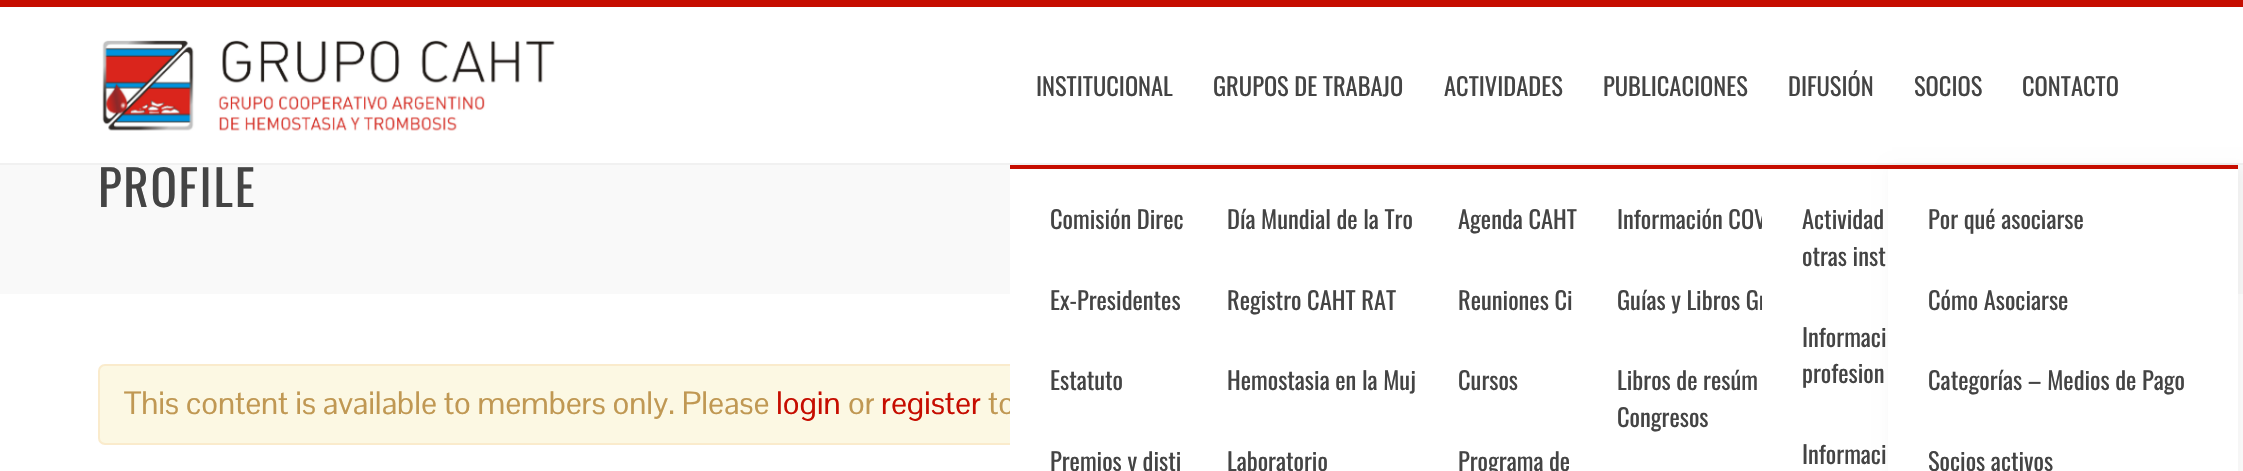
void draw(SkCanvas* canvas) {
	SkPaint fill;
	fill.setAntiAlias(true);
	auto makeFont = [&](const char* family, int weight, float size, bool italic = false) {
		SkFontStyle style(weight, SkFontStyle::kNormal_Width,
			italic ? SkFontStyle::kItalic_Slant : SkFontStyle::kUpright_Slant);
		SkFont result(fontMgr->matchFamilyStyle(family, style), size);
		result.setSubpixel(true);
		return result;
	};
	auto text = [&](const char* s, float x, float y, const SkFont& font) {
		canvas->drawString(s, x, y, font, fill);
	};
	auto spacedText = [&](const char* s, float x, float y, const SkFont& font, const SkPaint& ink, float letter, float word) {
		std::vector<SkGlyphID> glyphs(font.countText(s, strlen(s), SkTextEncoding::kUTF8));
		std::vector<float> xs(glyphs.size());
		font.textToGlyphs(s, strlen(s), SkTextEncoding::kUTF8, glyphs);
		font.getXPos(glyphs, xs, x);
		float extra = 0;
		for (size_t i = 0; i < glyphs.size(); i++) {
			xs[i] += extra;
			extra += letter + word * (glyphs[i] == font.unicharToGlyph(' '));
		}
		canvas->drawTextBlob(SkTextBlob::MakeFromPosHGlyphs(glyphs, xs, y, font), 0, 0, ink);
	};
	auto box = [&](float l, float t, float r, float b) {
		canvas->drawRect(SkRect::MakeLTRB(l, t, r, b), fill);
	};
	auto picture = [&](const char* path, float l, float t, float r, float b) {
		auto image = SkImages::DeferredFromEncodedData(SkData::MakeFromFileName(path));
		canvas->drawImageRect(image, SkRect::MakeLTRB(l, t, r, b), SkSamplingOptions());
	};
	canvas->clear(0xFFFFFFFF);
	fill.setColor(0xFFF9F9F9);
	box(0, 165, 2243, 294);
	fill.setColor(0xFFFCF8E3);
	canvas->drawRoundRect(SkRect::MakeLTRB(99, 365, 1530, 444), 6, 6, fill);
	fill.setStyle(SkPaint::kStroke_Style);
	fill.setStrokeWidth(2);
	fill.setColor(0xFFFAEBCC);
	canvas->drawRoundRect(SkRect::MakeLTRB(99, 365, 1530, 444), 6, 6, fill);
	fill.setStyle(SkPaint::kFill_Style);
	fill.setColor(0xFFC60D00);
	box(0, 0, 2243, 7);
	fill.setColor(0xFFF1F1F1);
	box(0, 163, 2243, 165);
	picture("image0.png", 102, 40, 555, 131);
	fill.setColor(0xFFC60D00);
	box(1010, 165, 1888, 169);
	fill.setColor(0xFFFFFFFF);
	box(1577, 169, 1762, 294);
	auto font1 = makeFont("Oswald", 400, 49);
	fill.setColor(0xFF444444);
	spacedText("PROFILE", 98, 207, font1, fill, 1.75f, 0);
	auto font2 = makeFont("Pontano Sans", 400, 31.5f);
	fill.setColor(0xFFC09853);
	text("This content is available to members only. Please", 124, 414, font2);
	fill.setColor(0xFFC60D00);
	text("login", 776, 414, font2);
	fill.setColor(0xFFC09853);
	text("or", 848, 414, font2);
	fill.setColor(0xFFC60D00);
	text("register", 881, 414, font2);
	fill.setColor(0xFFC09853);
	text("to", 988, 414, font2);
	auto font3 = makeFont("Oswald", 400, 24.5f);
	fill.setColor(0xFF444444);
	text("INSTITUCIONAL", 1036, 96, font3);
	fill.setColor(0xFFFFFFFF);
	box(1010, 169, 1577, 445);
	fill.setColor(0xFF444444);
	text("Comisión Direc", 1050, 229, font3);
	text("Ex-Presidentes", 1050, 310, font3);
	text("Estatuto", 1050, 390, font3);
	text("Premios y disti", 1050, 471, font3);
	text("GRUPOS DE TRABAJO", 1213, 96, font3);
	text("Día Mundial de la Tro", 1227, 229, font3);
	text("Registro CAHT RAT", 1227, 310, font3);
	text("Hemostasia en la Muj", 1227, 390, font3);
	text("Laboratorio", 1227, 471, font3);
	text("ACTIVIDADES", 1444, 96, font3);
	text("Agenda CAHT", 1458, 229, font3);
	text("Reuniones Ci", 1458, 310, font3);
	text("Cursos", 1458, 390, font3);
	text("Programa de", 1458, 471, font3);
	text("PUBLICACIONES", 1603, 96, font3);
	text("Información COV", 1617, 229, font3);
	text("Guías y Libros Gr", 1617, 310, font3);
	text("Libros de resúm", 1617, 390, font3);
	text("Congresos", 1617, 427, font3);
	text("DIFUSIÓN", 1788, 96, font3);
	fill.setColor(0xFFFFFFFF);
	box(1762, 169, 1888, 310);
	fill.setColor(0xFF444444);
	text("Actividad", 1802, 229, font3);
	text("otras inst", 1802, 266, font3);
	text("Informaci", 1802, 347, font3);
	text("profesion", 1802, 383, font3);
	text("Informaci", 1802, 464, font3);
	text("SOCIOS", 1914, 96, font3);
	fill.setColor(0x0D000000);
	fill.setMaskFilter(SkMaskFilter::MakeBlur(kNormal_SkBlurStyle, 7));
	canvas->drawRect(SkRect::MakeLTRB(1892, 168, 2242, 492), fill);
	fill.setMaskFilter(nullptr);
	fill.setColor(0xFFFFFFFF);
	box(1888, 169, 2238, 471);
	fill.setColor(0xFFC60D00);
	box(1888, 165, 2238, 169);
	fill.setColor(0xFF444444);
	text("Por qué asociarse", 1928, 229, font3);
	text("Cómo Asociarse", 1928, 310, font3);
	text("Categorías – Medios de Pago", 1928, 390, font3);
	text("Socios activos", 1928, 471, font3);
	text("CONTACTO", 2022, 96, font3);
}
